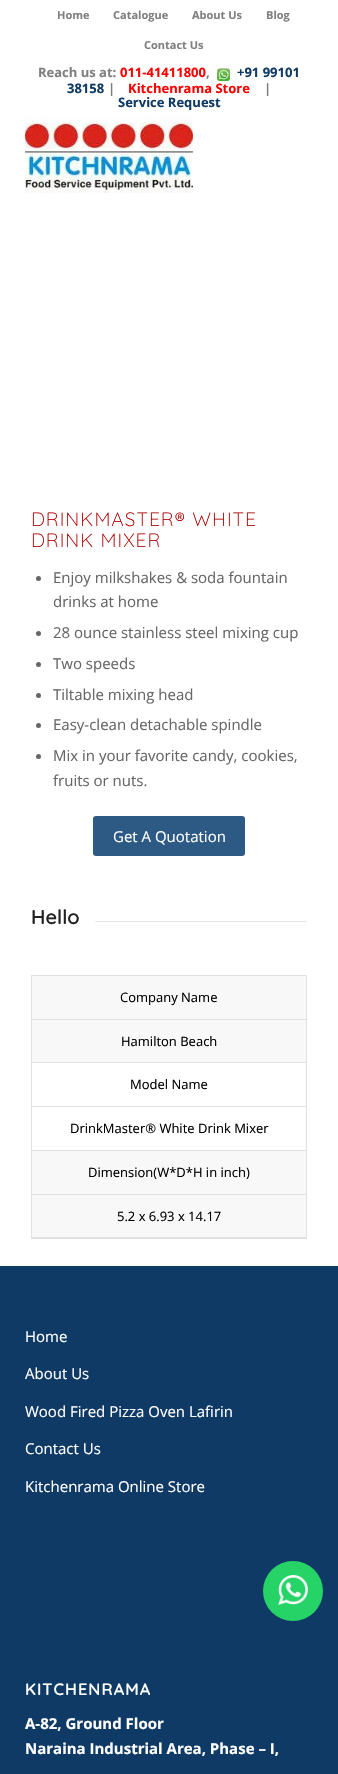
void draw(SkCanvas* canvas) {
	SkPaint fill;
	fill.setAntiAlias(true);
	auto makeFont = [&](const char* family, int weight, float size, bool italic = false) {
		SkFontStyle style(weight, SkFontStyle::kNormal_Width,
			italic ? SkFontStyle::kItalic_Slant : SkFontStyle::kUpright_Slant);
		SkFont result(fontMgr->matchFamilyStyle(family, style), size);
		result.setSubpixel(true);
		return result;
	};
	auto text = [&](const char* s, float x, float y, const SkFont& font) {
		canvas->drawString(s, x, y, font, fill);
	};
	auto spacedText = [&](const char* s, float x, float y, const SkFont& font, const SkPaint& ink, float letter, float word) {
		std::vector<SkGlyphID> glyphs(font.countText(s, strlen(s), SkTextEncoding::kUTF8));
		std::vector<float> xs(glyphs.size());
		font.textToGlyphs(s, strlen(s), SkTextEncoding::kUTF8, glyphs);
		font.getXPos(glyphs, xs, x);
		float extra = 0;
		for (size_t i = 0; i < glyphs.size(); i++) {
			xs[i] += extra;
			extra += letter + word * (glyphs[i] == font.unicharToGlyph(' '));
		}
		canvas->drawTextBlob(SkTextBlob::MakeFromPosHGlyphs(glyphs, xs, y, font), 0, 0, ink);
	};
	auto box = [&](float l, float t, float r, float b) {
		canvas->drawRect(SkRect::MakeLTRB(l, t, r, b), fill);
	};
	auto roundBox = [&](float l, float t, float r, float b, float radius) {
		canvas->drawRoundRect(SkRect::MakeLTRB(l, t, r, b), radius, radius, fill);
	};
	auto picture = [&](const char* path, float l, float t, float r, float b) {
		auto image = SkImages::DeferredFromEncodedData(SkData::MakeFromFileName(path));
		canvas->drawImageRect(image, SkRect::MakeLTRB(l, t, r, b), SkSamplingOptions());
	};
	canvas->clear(0xFFFFFFFF);
	fill.setColor(0xFFFFFCFF);
	box(99, 10, 100, 20);
	box(179, 10, 180, 20);
	box(252, 10, 253, 20);
	box(300, 10, 301, 20);
	picture("image0.png", 217, 68, 230, 81);
	picture("image1.png", 25, 117, 193, 193);
	fill.setColor(0xFF666666);
	canvas->drawCircle(38.5f, 578.5f, 2.5f, fill);
	canvas->drawCircle(38.5f, 633.5f, 2.5f, fill);
	canvas->drawCircle(38.5f, 664.5f, 2.5f, fill);
	canvas->drawCircle(38.5f, 695.5f, 2.5f, fill);
	canvas->drawCircle(38.5f, 725.5f, 2.5f, fill);
	canvas->drawCircle(38.5f, 756.5f, 2.5f, fill);
	fill.setColor(0xFF2C5A85);
	roundBox(93, 816, 245, 856, 3);
	fill.setColor(0xFFE8E8E8);
	box(95, 921, 307, 922);
	fill.setColor(0xFFF8F8F8);
	box(32, 976, 306, 1237);
	fill.setColor(0xFFE1E1E1);
	box(31, 975, 307, 976);
	box(306, 975, 307, 1239);
	box(31, 1238, 307, 1239);
	box(31, 975, 32, 1239);
	box(32, 1019, 306, 1020);
	box(32, 1062, 306, 1063);
	fill.setColor(0xFFFFFFFF);
	box(32, 1063, 306, 1150);
	fill.setColor(0xFFE1E1E1);
	box(32, 1106, 306, 1107);
	box(32, 1150, 306, 1151);
	box(32, 1194, 306, 1195);
	box(32, 1237, 306, 1238);
	fill.setColor(0xFF0F3A66);
	box(0, 1266, 338, 1774);
	fill.setColor(0xFF25D366);
	canvas->drawCircle(293, 1591, 30, fill);
	picture("image2.png", 278, 1575, 308, 1605);
	auto font1 = makeFont("Open Sans", 700, 11);
	fill.setColor(0xFF808080);
	text("Home", 57, 19, font1);
	text("Catalogue", 113, 19, font1);
	text("About Us", 192, 19, font1);
	text("Blog", 266, 19, font1);
	text("Contact Us", 144, 49, font1);
	auto font2 = makeFont("Open Sans", 700, 13);
	text("Reach us at:", 38, 77, font2);
	fill.setColor(0xFFFF0000);
	text("011-41411800", 120, 77, font2);
	fill.setColor(0xFF808080);
	text(",", 206, 77, font2);
	fill.setColor(0xFF0F3A66);
	text("+91 99101", 237, 77, font2);
	text("38158", 67, 93, font2);
	fill.setColor(0xFF808080);
	text("|", 108, 93, font2);
	fill.setColor(0xFFFF0000);
	text("Kitchenrama Store", 128, 93, font2);
	fill.setColor(0xFF808080);
	text("|", 264, 93, font2);
	fill.setColor(0xFF0F3A66);
	text("Service Request", 118, 107, font2);
	auto font3 = makeFont("Quicksand", 300, 19.25f);
	fill.setColor(0xFFAF0000);
	spacedText("DRINKMASTER® WHITE", 31, 526, font3, fill, 1, 0);
	spacedText("DRINK MIXER", 31, 547, font3, fill, 1, 0);
	auto font4 = makeFont("Open Sans", 400, 15);
	fill.setColor(0xFF666666);
	text("Enjoy milkshakes & soda fountain", 53, 583, font4);
	text("drinks at home", 53, 607, font4);
	text("28 ounce stainless steel mixing cup", 53, 638, font4);
	text("Two speeds", 53, 669, font4);
	text("Tiltable mixing head", 53, 700, font4);
	text("Easy-clean detachable spindle", 53, 730, font4);
	text("Mix in your favorite candy, cookies,", 53, 761, font4);
	text("fruits or nuts.", 53, 786, font4);
	fill.setColor(0xFFFFFFFF);
	text("Get A Quotation", 113, 842, font4);
	auto font5 = makeFont("Quicksand", 600, 20);
	fill.setColor(0xFF222222);
	text("Hello", 31, 924, font5);
	auto font6 = makeFont("Open Sans", 400, 13);
	fill.setColor(0xFF000000);
	text("Company Name", 120, 1002, font6);
	text("Hamilton Beach", 121, 1046, font6);
	text("Model Name", 130, 1089, font6);
	text("DrinkMaster® White Drink Mixer", 70, 1133, font6);
	text("Dimension(W*D*H in inch)", 88, 1177, font6);
	text("5.2 x 6.93 x 14.17", 117, 1221, font6);
	fill.setColor(0xFFFFFFFF);
	text("Home", 25, 1342, font4);
	text("About Us", 25, 1379, font4);
	text("Wood Fired Pizza Oven Lafirin", 25, 1417, font4);
	text("Contact Us", 25, 1454, font4);
	text("Kitchenrama Online Store", 25, 1492, font4);
	auto font7 = makeFont("Quicksand", 600, 16.5f);
	spacedText("KITCHENRAMA", 25, 1695, font7, fill, 1, 0);
	auto font8 = makeFont("Open Sans", 700, 15);
	text("A-82, Ground Floor", 25, 1729, font8);
	text("Naraina Industrial Area, Phase – I,", 25, 1754, font8);
}
